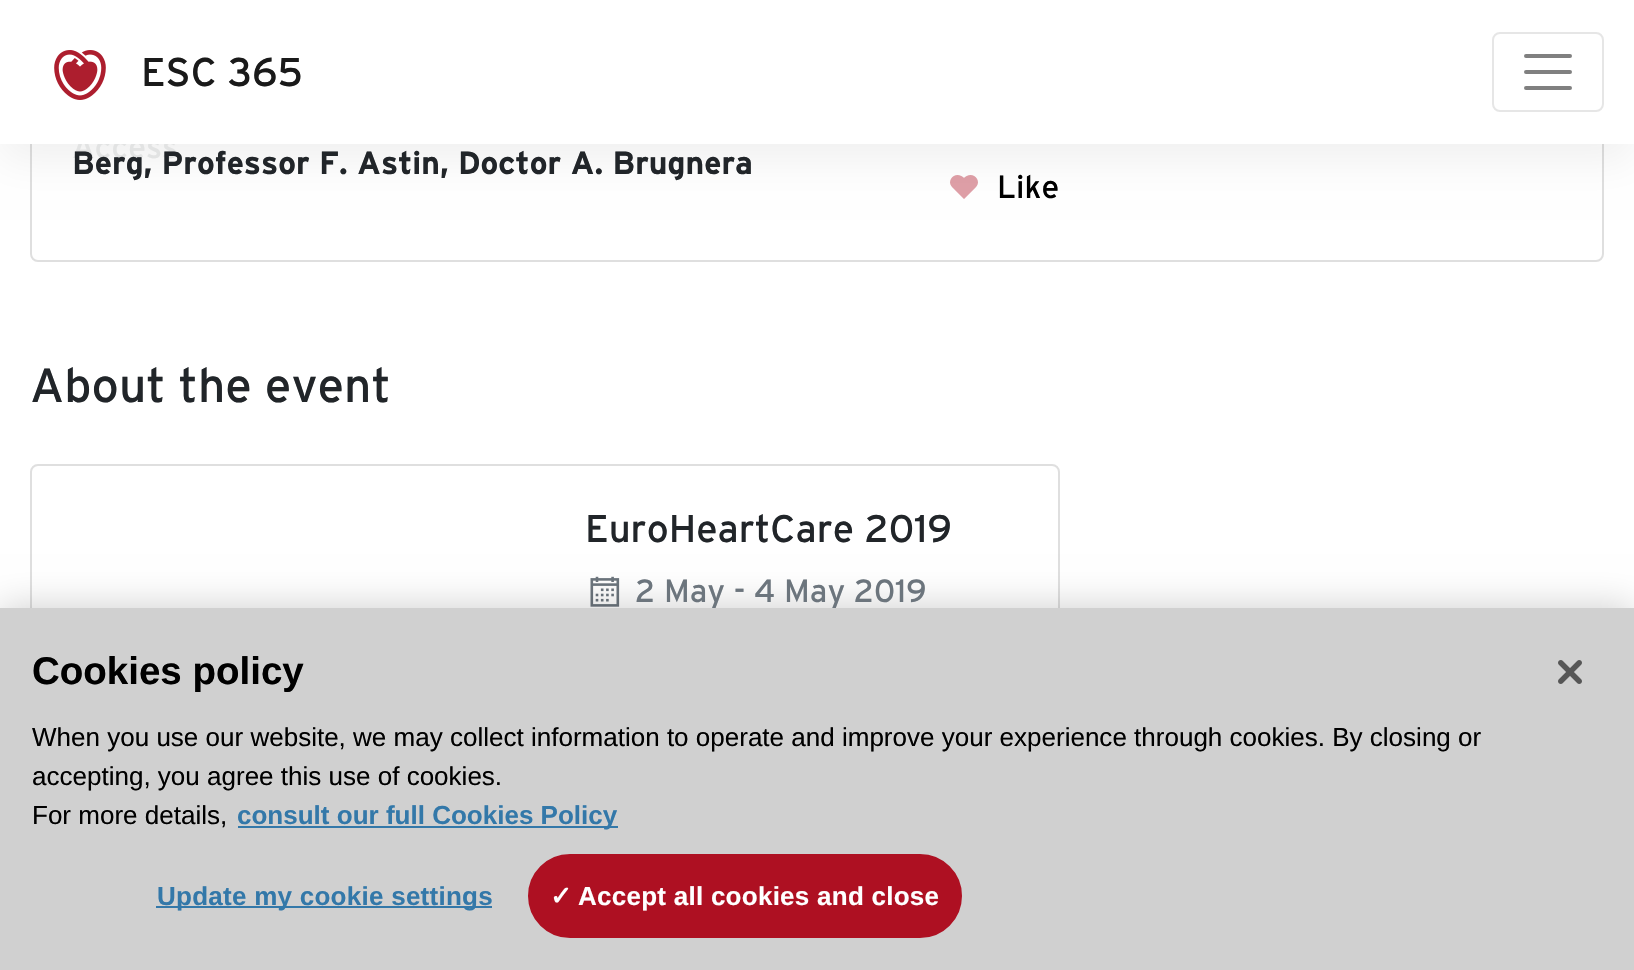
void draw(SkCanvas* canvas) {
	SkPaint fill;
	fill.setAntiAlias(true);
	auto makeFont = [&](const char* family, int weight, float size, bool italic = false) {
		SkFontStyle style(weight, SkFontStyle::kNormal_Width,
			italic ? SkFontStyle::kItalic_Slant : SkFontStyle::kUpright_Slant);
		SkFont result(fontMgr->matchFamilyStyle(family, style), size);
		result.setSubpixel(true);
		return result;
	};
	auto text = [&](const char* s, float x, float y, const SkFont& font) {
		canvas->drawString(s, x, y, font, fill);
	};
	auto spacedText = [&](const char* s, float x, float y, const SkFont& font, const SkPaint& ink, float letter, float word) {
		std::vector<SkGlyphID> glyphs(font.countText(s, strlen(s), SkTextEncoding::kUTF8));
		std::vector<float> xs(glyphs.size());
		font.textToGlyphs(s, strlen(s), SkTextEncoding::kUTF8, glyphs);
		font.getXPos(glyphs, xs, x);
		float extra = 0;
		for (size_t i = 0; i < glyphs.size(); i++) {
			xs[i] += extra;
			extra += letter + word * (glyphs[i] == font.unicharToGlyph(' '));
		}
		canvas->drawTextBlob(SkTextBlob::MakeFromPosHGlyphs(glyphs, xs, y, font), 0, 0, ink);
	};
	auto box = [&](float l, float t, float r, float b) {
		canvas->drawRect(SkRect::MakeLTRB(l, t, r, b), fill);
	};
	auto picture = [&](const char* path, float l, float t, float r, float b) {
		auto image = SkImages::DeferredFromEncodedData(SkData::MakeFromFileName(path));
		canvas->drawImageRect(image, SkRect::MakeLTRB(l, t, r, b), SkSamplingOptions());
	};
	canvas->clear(0xFFFFFFFF);
	fill.setStyle(SkPaint::kStroke_Style);
	fill.setStrokeWidth(2);
	fill.setColor(0xFFDFDFDF);
	canvas->drawRoundRect(SkRect::MakeLTRB(31, -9, 1603, 261), 7, 7, fill);
	picture("image1.png", 950, 175, 978, 199);
	fill.setStyle(SkPaint::kFill_Style);
	fill.setColor(0x0F000000);
	fill.setMaskFilter(SkMaskFilter::MakeBlur(kNormal_SkBlurStyle, 20));
	canvas->drawRect(SkRect::MakeLTRB(0, 16, 1634, 160), fill);
	fill.setMaskFilter(nullptr);
	fill.setStyle(SkPaint::kStroke_Style);
	fill.setColor(0xFFDFDFDF);
	canvas->drawRoundRect(SkRect::MakeLTRB(31, 465, 1059, 941), 7, 7, fill);
	picture("image2.png", 590, 576, 620, 607);
	fill.setStyle(SkPaint::kFill_Style);
	fill.setColor(0x33000000);
	fill.setMaskFilter(SkMaskFilter::MakeBlur(kNormal_SkBlurStyle, 18));
	canvas->drawRect(SkRect::MakeLTRB(0, 608, 1634, 970), fill);
	fill.setMaskFilter(nullptr);
	fill.setColor(0xFFD0D0D0);
	box(0, 608, 1634, 970);
	fill.setColor(0xFF3378A9);
	box(238, 826, 618, 828);
	box(156, 906, 492, 908);
	fill.setColor(0xFFAE1022);
	canvas->drawRoundRect(SkRect::MakeLTRB(529, 855, 961, 937), 41, 41, fill);
	fill.setStyle(SkPaint::kStroke_Style);
	canvas->drawRoundRect(SkRect::MakeLTRB(529, 855, 961, 937), 41, 41, fill);
	picture("image3.png", 1558, 660, 1582, 684);
	auto font1 = makeFont("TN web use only", 400, 32);
	fill.setStyle(SkPaint::kFill_Style);
	fill.setColor(0xFFE2E3E3);
	text("Access", 72, 158, font1);
	fill.setColor(0xFFFFFFFF);
	box(0, 0, 1634, 144);
	fill.setStyle(SkPaint::kStroke_Style);
	fill.setColor(0xFFE6E6E6);
	canvas->drawRoundRect(SkRect::MakeLTRB(1493, 33, 1603, 111), 7, 7, fill);
	fill.setStrokeWidth(4);
	fill.setStrokeCap(SkPaint::kRound_Cap);
	fill.setColor(0xFF808080);
	canvas->drawPath(SkPathBuilder().moveTo(1526, 56).lineTo(1570, 56).moveTo(1526, 72).lineTo(1570, 72).moveTo(1526, 88).lineTo(1570, 88).detach(), fill);
	auto font2 = makeFont("TN web use only", 400, 40);
	fill.setStyle(SkPaint::kFill_Style);
	fill.setColor(0xFF1A1A1A);
	text("ESC 365", 141, 86, font2);
	picture("image0.png", 54, 50, 106, 100);
	auto font3 = makeFont("TN web use only", 700, 32);
	fill.setColor(0xFF212529);
	text("Berg, Professor F. Astin, Doctor A. Brugnera", 72, 174, font3);
	fill.setColor(0xFF000000);
	text("Like", 997, 198, font1);
	auto font4 = makeFont("TN web use only", 400, 48);
	fill.setColor(0xFF212529);
	text("About the event", 30, 402, font4);
	auto font5 = makeFont("TN web use only", 400, 38.5f);
	text("EuroHeartCare 2019", 585, 542, font5);
	fill.setColor(0xFF6C757D);
	text("2 May - 4 May 2019", 635, 602, font1);
	auto font6 = makeFont("Liberation Sans", 700, 38.5f);
	fill.setColor(0xFF000000);
	text("Cookies policy", 32, 684, font6);
	auto font7 = makeFont("Liberation Sans", 400, 26.02f);
	text("When you use our website, we may collect information to operate and improve your experience through cookies. By closing or", 32, 746, font7);
	text("accepting, you agree this use of cookies.", 32, 785, font7);
	text("For more details,", 32, 824, font7);
	auto font8 = makeFont("Liberation Sans", 700, 26.02f);
	fill.setColor(0xFF3378A9);
	text("consult our full Cookies Policy", 237, 824, font8);
	spacedText("Update my cookie settings", 157, 905, font8, fill, 0.25f, 0);
	auto font9 = makeFont("DejaVu Sans", 700, 26);
	fill.setColor(0xFFFFFFFF);
	spacedText("✓", 550, 905, font9, fill, 0.25f, 0);
	spacedText("Accept all cookies and close", 578, 905, font8, fill, 0.25f, 0);
}
